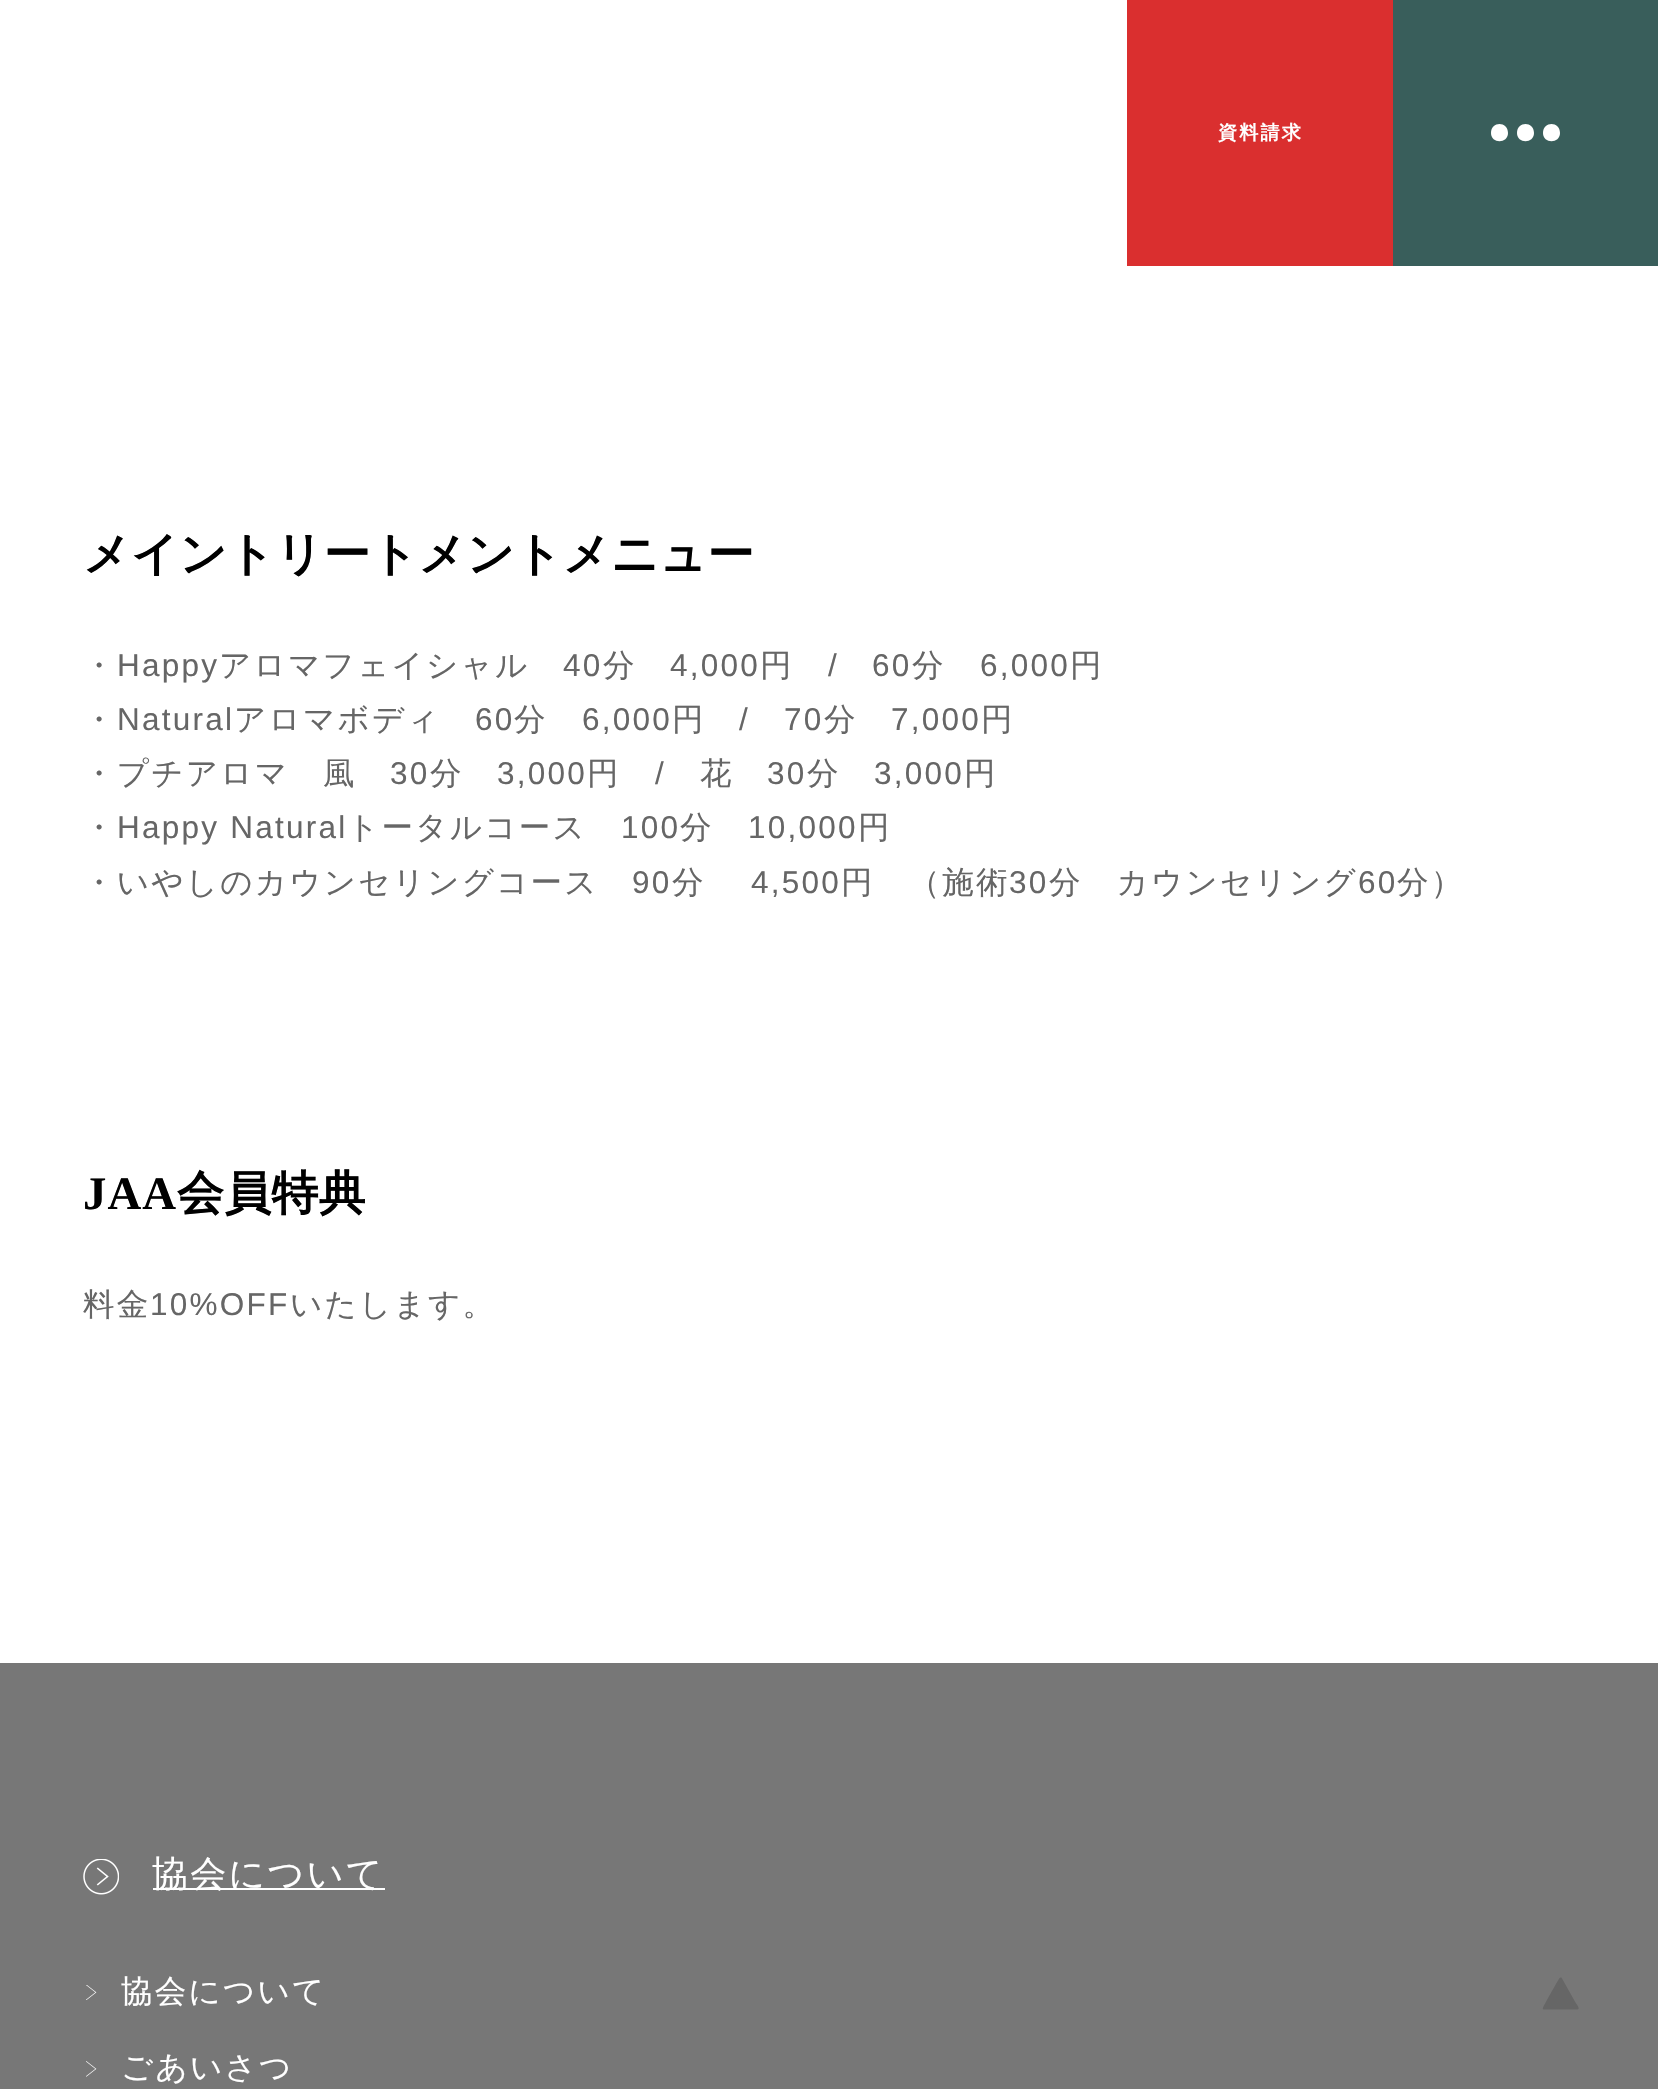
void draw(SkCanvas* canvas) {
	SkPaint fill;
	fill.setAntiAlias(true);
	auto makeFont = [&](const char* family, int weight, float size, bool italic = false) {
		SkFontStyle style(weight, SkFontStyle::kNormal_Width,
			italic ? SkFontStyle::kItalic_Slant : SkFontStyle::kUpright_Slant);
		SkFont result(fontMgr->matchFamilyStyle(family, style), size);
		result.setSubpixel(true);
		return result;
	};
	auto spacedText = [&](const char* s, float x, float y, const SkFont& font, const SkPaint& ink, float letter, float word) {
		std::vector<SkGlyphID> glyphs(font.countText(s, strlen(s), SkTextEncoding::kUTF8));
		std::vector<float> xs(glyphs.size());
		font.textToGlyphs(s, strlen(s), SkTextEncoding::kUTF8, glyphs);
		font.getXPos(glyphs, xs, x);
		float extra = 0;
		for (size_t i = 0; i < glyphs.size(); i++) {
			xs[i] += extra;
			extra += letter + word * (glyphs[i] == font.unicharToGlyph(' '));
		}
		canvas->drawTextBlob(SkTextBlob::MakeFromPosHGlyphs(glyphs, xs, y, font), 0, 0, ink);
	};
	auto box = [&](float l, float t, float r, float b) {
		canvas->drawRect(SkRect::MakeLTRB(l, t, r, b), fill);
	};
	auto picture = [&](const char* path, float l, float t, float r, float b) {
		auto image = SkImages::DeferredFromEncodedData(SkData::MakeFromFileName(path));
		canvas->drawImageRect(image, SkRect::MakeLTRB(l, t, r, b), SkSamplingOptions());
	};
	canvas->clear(0xFFFFFFFF);
	fill.setColor(0xFFDA2F2F);
	box(1127, 0, 1393, 266);
	fill.setColor(0xFF395E5B);
	box(1393, 0, 1658, 266);
	fill.setColor(0xFFFFFFFF);
	canvas->drawPath(SkPathBuilder(SkPathFillType::kEvenOdd).moveTo(1543, 133).cubicTo(1543, 121, 1560, 121, 1560, 133).cubicTo(1560, 144, 1543, 144, 1543, 133).close().moveTo(1517, 133).cubicTo(1517, 121, 1534, 121, 1534, 133).cubicTo(1534, 144, 1517, 144, 1517, 133).close().moveTo(1491, 133).cubicTo(1491, 121, 1508, 121, 1508, 133).cubicTo(1508, 144, 1491, 144, 1491, 133).close().detach(), fill);
	fill.setColor(0xFF777777);
	box(0, 1663, 1658, 2089);
	picture("image0.png", 83, 1859, 119, 1895);
	fill.setColor(0xFFFFFFFF);
	box(153, 1888, 385, 1890);
	picture("image1.png", 86, 1985, 97, 2000);
	picture("image2.png", 86, 2061, 97, 2077);
	fill.setColor(0xFF666666);
	canvas->drawPath(SkPathBuilder().moveTo(1543, 2007.5f).cubicTo(1544.5f, 2004.5f, 1559, 1978, 1560, 1977.5f).lineTo(1561.5f, 1977.5f).lineTo(1575.5f, 2002.5f).cubicTo(1576, 2003.5f, 1579.5f, 2007.5f, 1578.5f, 2009).lineTo(1577.5f, 2009.5f).lineTo(1543.5f, 2009.5f).cubicTo(1543, 2009.5f, 1542.5f, 2008.5f, 1543, 2007.5f).close().detach(), fill);
	auto font1 = makeFont("WenQuanYi Zen Hei", 700, 19);
	fill.setColor(0xFFFFFFFF);
	spacedText("資料請求", 1218, 139, font1, fill, 2.25f, 0);
	auto font2 = makeFont("WenQuanYi Zen Hei", 700, 46.75f);
	fill.setColor(0xFF000000);
	spacedText("メイントリートメントメニュー", 83, 570, font2, fill, 0.25f, 0);
	auto font3 = makeFont("WenQuanYi Zen Hei", 500, 31.5f);
	fill.setColor(0xFF666666);
	spacedText("・", 83, 676, font3, fill, 2.25f, 0);
	auto font4 = makeFont("Liberation Sans", 400, 31.5f);
	spacedText("Happy", 117, 676, font4, fill, 2.25f, 0);
	spacedText("アロマフェイシャル", 219, 676, font3, fill, 2.25f, 0);
	spacedText("40", 563, 676, font4, fill, 2.25f, 0);
	spacedText("分", 603, 676, font3, fill, 2.25f, 0);
	spacedText("4,000", 670, 676, font4, fill, 2.25f, 0);
	spacedText("円", 760, 676, font3, fill, 2.25f, 0);
	spacedText("/", 828, 676, font4, fill, 2.25f, 0);
	spacedText("60", 872, 676, font4, fill, 2.25f, 0);
	spacedText("分", 912, 676, font3, fill, 2.25f, 0);
	spacedText("6,000", 980, 676, font4, fill, 2.25f, 0);
	spacedText("円", 1070, 676, font3, fill, 2.25f, 0);
	spacedText("・", 83, 730, font3, fill, 2.25f, 0);
	spacedText("Natural", 117, 730, font4, fill, 2.25f, 0);
	spacedText("アロマボディ", 234, 730, font3, fill, 2.25f, 0);
	spacedText("60", 475, 730, font4, fill, 2.25f, 0);
	spacedText("分", 514, 730, font3, fill, 2.25f, 0);
	spacedText("6,000", 582, 730, font4, fill, 2.25f, 0);
	spacedText("円", 672, 730, font3, fill, 2.25f, 0);
	spacedText("/", 739, 730, font4, fill, 2.25f, 0);
	spacedText("70", 784, 730, font4, fill, 2.25f, 0);
	spacedText("分", 824, 730, font3, fill, 2.25f, 0);
	spacedText("7,000", 891, 730, font4, fill, 2.25f, 0);
	spacedText("円", 981, 730, font3, fill, 2.25f, 0);
	spacedText("・プチアロマ　風", 83, 784, font3, fill, 2.25f, 0);
	spacedText("30", 390, 784, font4, fill, 2.25f, 0);
	spacedText("分", 430, 784, font3, fill, 2.25f, 0);
	spacedText("3,000", 497, 784, font4, fill, 2.25f, 0);
	spacedText("円", 587, 784, font3, fill, 2.25f, 0);
	spacedText("/", 655, 784, font4, fill, 2.25f, 0);
	spacedText("花", 700, 784, font3, fill, 2.25f, 0);
	spacedText("30", 767, 784, font4, fill, 2.25f, 0);
	spacedText("分", 807, 784, font3, fill, 2.25f, 0);
	spacedText("3,000", 874, 784, font4, fill, 2.25f, 0);
	spacedText("円", 964, 784, font3, fill, 2.25f, 0);
	spacedText("・", 83, 838, font3, fill, 2.25f, 0);
	spacedText("Happy Natural", 117, 838, font4, fill, 2.25f, 0);
	spacedText("トータルコース", 347, 838, font3, fill, 2.25f, 0);
	spacedText("100", 621, 838, font4, fill, 2.25f, 0);
	spacedText("分", 680, 838, font3, fill, 2.25f, 0);
	spacedText("10,000", 748, 838, font4, fill, 2.25f, 0);
	spacedText("円", 858, 838, font3, fill, 2.25f, 0);
	spacedText("・いやしのカウンセリングコース", 83, 893, font3, fill, 2.25f, 0);
	spacedText("90", 632, 893, font4, fill, 2.25f, 0);
	spacedText("分", 672, 893, font3, fill, 2.25f, 0);
	spacedText("4,500", 751, 893, font4, fill, 2.25f, 0);
	spacedText("円　（施術", 841, 893, font3, fill, 2.25f, 0);
	spacedText("30", 1009, 893, font4, fill, 2.25f, 0);
	spacedText("分　カウンセリング", 1049, 893, font3, fill, 2.25f, 0);
	spacedText("60", 1358, 893, font4, fill, 2.25f, 0);
	spacedText("分）", 1397, 893, font3, fill, 2.25f, 0);
	auto font5 = makeFont("Liberation Serif", 700, 46.75f);
	fill.setColor(0xFF000000);
	spacedText("JAA", 83, 1209, font5, fill, 1, 0);
	spacedText("会員特典", 177, 1209, font2, fill, 0.5f, 0);
	fill.setColor(0xFF666666);
	spacedText("料金", 83, 1315, font3, fill, 2.25f, 0);
	spacedText("10%OFF", 150, 1315, font4, fill, 2.25f, 0);
	spacedText("いたします。", 290, 1315, font3, fill, 2.25f, 0);
	auto font6 = makeFont("WenQuanYi Zen Hei", 500, 36);
	fill.setColor(0xFFFFFFFF);
	spacedText("協会について", 152, 1886, font6, fill, 2.25f, 0);
	spacedText("協会について", 121, 2002, font3, fill, 2.25f, 0);
	spacedText("ごあいさつ", 121, 2078, font3, fill, 2.25f, 0);
}
